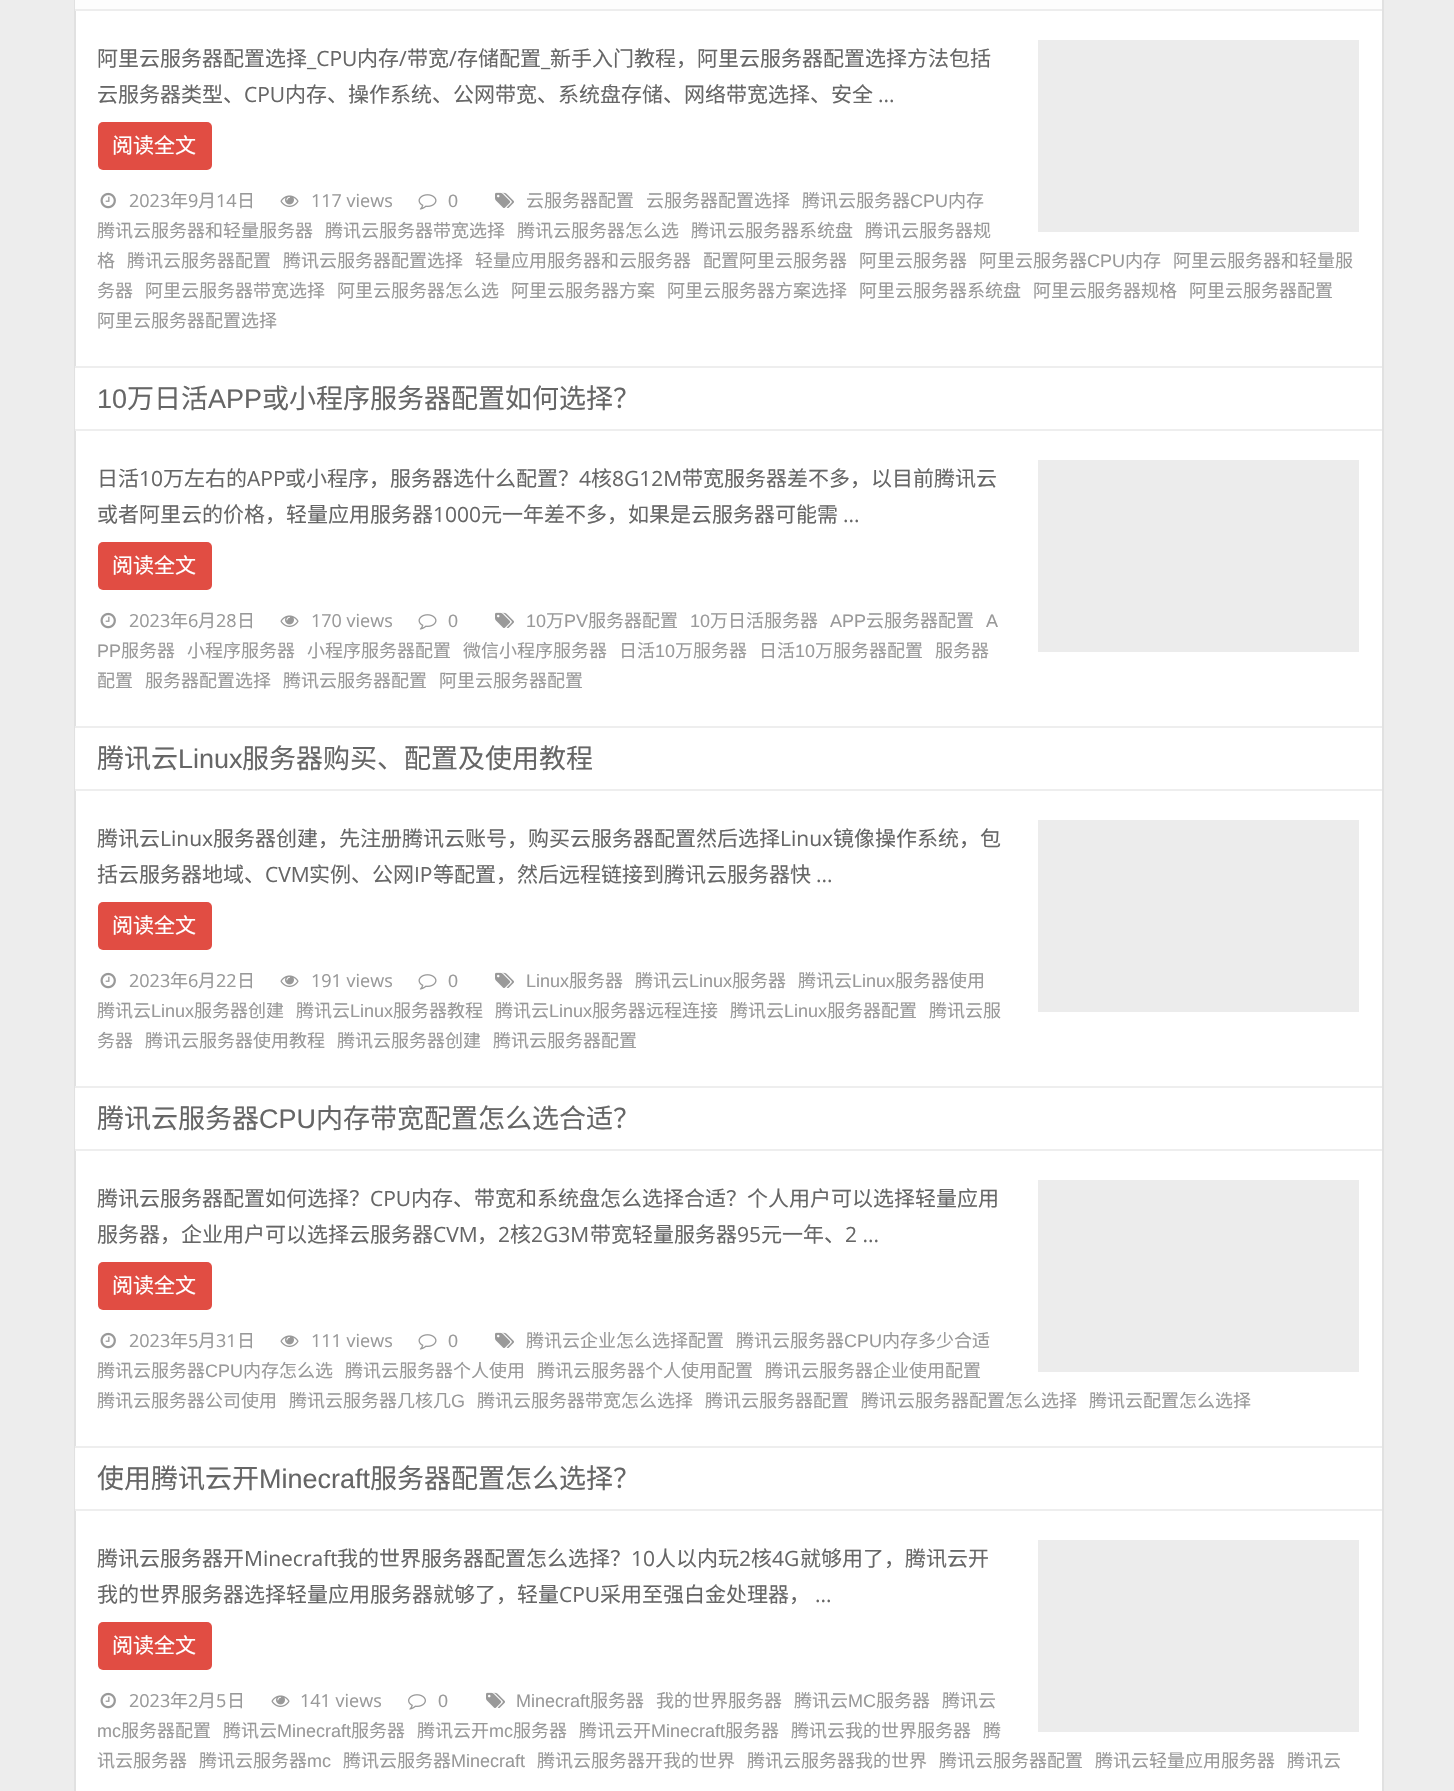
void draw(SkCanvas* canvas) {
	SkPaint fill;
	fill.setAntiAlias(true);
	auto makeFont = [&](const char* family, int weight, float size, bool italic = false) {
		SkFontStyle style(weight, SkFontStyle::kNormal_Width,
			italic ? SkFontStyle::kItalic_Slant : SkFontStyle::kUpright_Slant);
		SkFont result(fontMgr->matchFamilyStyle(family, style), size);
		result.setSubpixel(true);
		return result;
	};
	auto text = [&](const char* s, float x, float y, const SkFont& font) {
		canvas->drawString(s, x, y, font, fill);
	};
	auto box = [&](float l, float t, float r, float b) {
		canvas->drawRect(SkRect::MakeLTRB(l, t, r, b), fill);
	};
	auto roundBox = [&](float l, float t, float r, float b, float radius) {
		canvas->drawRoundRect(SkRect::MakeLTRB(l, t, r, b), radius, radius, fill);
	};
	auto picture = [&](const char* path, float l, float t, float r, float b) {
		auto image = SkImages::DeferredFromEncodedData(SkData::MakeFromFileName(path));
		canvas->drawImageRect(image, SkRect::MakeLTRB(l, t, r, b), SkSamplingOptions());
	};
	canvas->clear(0xFFEDEDED);
	fill.setColor(0xFFFFFFFF);
	box(76, 11, 1382, 1791);
	fill.setColor(0xFFE1E1E1);
	box(1382, 0, 1384, 1791);
	box(74, 0, 76, 1791);
	fill.setColor(0xFFFDFDFD);
	box(75, 0, 1382, 9);
	fill.setColor(0xFFEEEEEE);
	box(75, 9, 76, 11);
	fill.setColor(0xFFECECEC);
	box(1038, 40, 1359, 232);
	fill.setColor(0xFFE14D43);
	roundBox(98, 122, 212, 170, 5);
	picture("image0.png", 495, 192, 514, 208);
	picture("image1.png", 100, 192, 116, 209);
	picture("image2.png", 280, 195, 299, 207);
	picture("image3.png", 418, 194, 437, 210);
	fill.setColor(0xFFFDFDFD);
	box(75, 368, 76, 429);
	fill.setColor(0xFFEEEEEE);
	box(75, 366, 1382, 368);
	box(75, 429, 1382, 431);
	fill.setColor(0xFFECECEC);
	box(1038, 460, 1359, 652);
	fill.setColor(0xFFE14D43);
	roundBox(98, 542, 212, 590, 5);
	picture("image0.png", 495, 612, 514, 628);
	picture("image1.png", 100, 612, 116, 629);
	picture("image2.png", 280, 615, 299, 627);
	picture("image3.png", 418, 614, 437, 630);
	fill.setColor(0xFFFDFDFD);
	box(75, 728, 76, 789);
	fill.setColor(0xFFEEEEEE);
	box(75, 726, 1382, 728);
	box(75, 789, 1382, 791);
	fill.setColor(0xFFECECEC);
	box(1038, 820, 1359, 1012);
	fill.setColor(0xFFE14D43);
	roundBox(98, 902, 212, 950, 5);
	picture("image0.png", 495, 972, 514, 988);
	picture("image1.png", 100, 972, 116, 989);
	picture("image2.png", 280, 975, 299, 987);
	picture("image3.png", 418, 974, 437, 990);
	fill.setColor(0xFFFDFDFD);
	box(75, 1088, 76, 1149);
	fill.setColor(0xFFEEEEEE);
	box(75, 1086, 1382, 1088);
	box(75, 1149, 1382, 1151);
	fill.setColor(0xFFECECEC);
	box(1038, 1180, 1359, 1372);
	fill.setColor(0xFFE14D43);
	roundBox(98, 1262, 212, 1310, 5);
	picture("image0.png", 495, 1332, 514, 1348);
	picture("image1.png", 100, 1332, 116, 1349);
	picture("image2.png", 280, 1335, 299, 1347);
	picture("image3.png", 418, 1334, 437, 1350);
	fill.setColor(0xFFFDFDFD);
	box(75, 1448, 76, 1509);
	fill.setColor(0xFFEEEEEE);
	box(75, 1446, 1382, 1448);
	box(75, 1509, 1382, 1511);
	fill.setColor(0xFFECECEC);
	box(1038, 1540, 1359, 1732);
	fill.setColor(0xFFE14D43);
	roundBox(98, 1622, 212, 1670, 5);
	picture("image0.png", 486, 1692, 505, 1708);
	picture("image1.png", 100, 1692, 116, 1709);
	picture("image2.png", 271, 1695, 290, 1707);
	picture("image4.png", 408, 1694, 426, 1710);
	auto font1 = makeFont("Noto Sans CJK SC", 400, 21);
	fill.setColor(0xFF666666);
	text("阿里云服务器配置选择", 97, 66, font1);
	auto font2 = makeFont("Open Sans", 400, 21);
	text("_CPU", 307, 66, font2);
	text("内存", 357, 66, font1);
	text("/", 399, 66, font2);
	text("带宽", 407, 66, font1);
	text("/", 449, 66, font2);
	text("存储配置", 457, 66, font1);
	text("新手入门教程，阿里云服务器配置选择方法包括", 550, 66, font1);
	text("_", 541, 66, font2);
	text("云服务器类型、", 97, 102, font1);
	text("CPU", 244, 102, font2);
	text("内存、操作系统、公网带宽、系统盘存储、网络带宽选择、安全", 285, 102, font1);
	text("...", 878, 102, font2);
	fill.setColor(0xFFFFFFFF);
	text("阅读全文", 112, 153, font1);
	auto font3 = makeFont("Noto Sans CJK SC", 400, 18);
	fill.setColor(0xFF999999);
	text("云服务器配置", 526, 207, font3);
	text("云服务器配置选择", 646, 207, font3);
	text("腾讯云服务器", 802, 207, font3);
	auto font4 = makeFont("Liberation Sans", 400, 18);
	text("CPU", 910, 207, font4);
	text("内存", 948, 207, font3);
	text("腾讯云服务器和轻量服务器", 97, 237, font3);
	text("腾讯云服务器带宽选择", 325, 237, font3);
	text("腾讯云服务器怎么选", 517, 237, font3);
	text("腾讯云服务器系统盘", 691, 237, font3);
	text("腾讯云服务器规", 865, 237, font3);
	text("格", 97, 267, font3);
	text("腾讯云服务器配置", 127, 267, font3);
	text("腾讯云服务器配置选择", 283, 267, font3);
	text("轻量应用服务器和云服务器", 475, 267, font3);
	text("配置阿里云服务器", 703, 267, font3);
	text("阿里云服务器", 859, 267, font3);
	text("阿里云服务器", 979, 267, font3);
	text("CPU", 1087, 267, font4);
	text("内存", 1125, 267, font3);
	text("阿里云服务器和轻量服", 1173, 267, font3);
	text("务器", 97, 297, font3);
	text("阿里云服务器带宽选择", 145, 297, font3);
	text("阿里云服务器怎么选", 337, 297, font3);
	text("阿里云服务器方案", 511, 297, font3);
	text("阿里云服务器方案选择", 667, 297, font3);
	text("阿里云服务器系统盘", 859, 297, font3);
	text("阿里云服务器规格", 1033, 297, font3);
	text("阿里云服务器配置", 1189, 297, font3);
	text("阿里云服务器配置选择", 97, 327, font3);
	auto font5 = makeFont("Open Sans", 400, 18);
	text("2023", 129, 207, font5);
	text("年", 170, 207, font3);
	text("9", 188, 207, font5);
	text("月", 198, 207, font3);
	text("14", 216, 207, font5);
	text("日", 237, 207, font3);
	text("117 views", 311, 207, font5);
	text("0", 448, 207, font4);
	auto font6 = makeFont("Liberation Sans", 400, 27);
	fill.setColor(0xFF666666);
	text("10", 97, 408, font6);
	auto font7 = makeFont("Noto Sans CJK SC", 400, 27);
	text("万日活", 127, 408, font7);
	text("APP", 208, 408, font6);
	text("或小程序服务器配置如何选择？", 262, 408, font7);
	text("日活", 97, 486, font1);
	text("10", 139, 486, font2);
	text("万左右的", 163, 486, font1);
	text("APP", 247, 486, font2);
	text("或小程序，服务器选什么配置？", 285, 486, font1);
	text("4", 579, 486, font2);
	text("核", 591, 486, font1);
	text("8G12M", 612, 486, font2);
	text("带宽服务器差不多，以目前腾讯云", 682, 486, font1);
	text("或者阿里云的价格，轻量应用服务器", 97, 522, font1);
	text("1000", 433, 522, font2);
	text("元一年差不多，如果是云服务器可能需", 481, 522, font1);
	text("...", 843, 522, font2);
	fill.setColor(0xFFFFFFFF);
	text("阅读全文", 112, 573, font1);
	fill.setColor(0xFF999999);
	text("10", 526, 627, font4);
	text("万", 546, 627, font3);
	text("PV", 564, 627, font4);
	text("服务器配置", 588, 627, font3);
	text("10", 690, 627, font4);
	text("万日活服务器", 710, 627, font3);
	text("APP", 830, 627, font4);
	text("云服务器配置", 866, 627, font3);
	text("A", 986, 627, font4);
	text("PP", 97, 657, font4);
	text("服务器", 121, 657, font3);
	text("小程序服务器", 187, 657, font3);
	text("小程序服务器配置", 307, 657, font3);
	text("微信小程序服务器", 463, 657, font3);
	text("日活", 619, 657, font3);
	text("10", 655, 657, font4);
	text("万服务器", 675, 657, font3);
	text("日活", 759, 657, font3);
	text("10", 795, 657, font4);
	text("万服务器配置", 815, 657, font3);
	text("服务器", 935, 657, font3);
	text("配置", 97, 687, font3);
	text("服务器配置选择", 145, 687, font3);
	text("腾讯云服务器配置", 283, 687, font3);
	text("阿里云服务器配置", 439, 687, font3);
	text("2023", 129, 627, font5);
	text("年", 170, 627, font3);
	text("6", 188, 627, font5);
	text("月", 198, 627, font3);
	text("28", 216, 627, font5);
	text("日", 237, 627, font3);
	text("170 views", 311, 627, font5);
	text("0", 448, 627, font4);
	fill.setColor(0xFF666666);
	text("腾讯云", 97, 768, font7);
	text("Linux", 178, 768, font6);
	text("服务器购买、配置及使用教程", 242, 768, font7);
	text("腾讯云", 97, 846, font1);
	text("Linux", 160, 846, font2);
	text("服务器创建，先注册腾讯云账号，购买云服务器配置然后选择", 213, 846, font1);
	text("Linux", 780, 846, font2);
	text("镜像操作系统，包", 833, 846, font1);
	text("括云服务器地域、", 97, 882, font1);
	text("CVM", 265, 882, font2);
	text("实例、公网", 309, 882, font1);
	text("IP", 414, 882, font2);
	text("等配置，然后远程链接到腾讯云服务器快", 433, 882, font1);
	text("...", 816, 882, font2);
	fill.setColor(0xFFFFFFFF);
	text("阅读全文", 112, 933, font1);
	fill.setColor(0xFF999999);
	text("Linux", 526, 987, font4);
	text("服务器", 569, 987, font3);
	text("腾讯云", 635, 987, font3);
	text("Linux", 689, 987, font4);
	text("服务器", 732, 987, font3);
	text("腾讯云", 798, 987, font3);
	text("Linux", 852, 987, font4);
	text("服务器使用", 895, 987, font3);
	text("腾讯云", 97, 1017, font3);
	text("Linux", 151, 1017, font4);
	text("服务器创建", 194, 1017, font3);
	text("腾讯云", 296, 1017, font3);
	text("Linux", 350, 1017, font4);
	text("服务器教程", 393, 1017, font3);
	text("腾讯云", 495, 1017, font3);
	text("Linux", 549, 1017, font4);
	text("服务器远程连接", 592, 1017, font3);
	text("腾讯云", 730, 1017, font3);
	text("Linux", 784, 1017, font4);
	text("服务器配置", 827, 1017, font3);
	text("腾讯云服", 929, 1017, font3);
	text("务器", 97, 1047, font3);
	text("腾讯云服务器使用教程", 145, 1047, font3);
	text("腾讯云服务器创建", 337, 1047, font3);
	text("腾讯云服务器配置", 493, 1047, font3);
	text("2023", 129, 987, font5);
	text("年", 170, 987, font3);
	text("6", 188, 987, font5);
	text("月", 198, 987, font3);
	text("22", 216, 987, font5);
	text("日", 237, 987, font3);
	text("191 views", 311, 987, font5);
	text("0", 448, 987, font4);
	fill.setColor(0xFF666666);
	text("腾讯云服务器", 97, 1128, font7);
	text("CPU", 259, 1128, font6);
	text("内存带宽配置怎么选合适？", 316, 1128, font7);
	text("腾讯云服务器配置如何选择？", 97, 1206, font1);
	text("CPU", 370, 1206, font2);
	text("内存、带宽和系统盘怎么选择合适？个人用户可以选择轻量应用", 411, 1206, font1);
	text("服务器，企业用户可以选择云服务器", 97, 1242, font1);
	text("CVM", 433, 1242, font2);
	text("，", 477, 1242, font1);
	text("2", 498, 1242, font2);
	text("核", 510, 1242, font1);
	text("2G3M", 531, 1242, font2);
	text("带宽轻量服务器", 590, 1242, font1);
	text("95", 737, 1242, font2);
	text("元一年、", 761, 1242, font1);
	text("2 ...", 845, 1242, font2);
	fill.setColor(0xFFFFFFFF);
	text("阅读全文", 112, 1293, font1);
	fill.setColor(0xFF999999);
	text("腾讯云企业怎么选择配置", 526, 1347, font3);
	text("腾讯云服务器", 736, 1347, font3);
	text("CPU", 844, 1347, font4);
	text("内存多少合适", 882, 1347, font3);
	text("腾讯云服务器", 97, 1377, font3);
	text("CPU", 205, 1377, font4);
	text("内存怎么选", 243, 1377, font3);
	text("腾讯云服务器个人使用", 345, 1377, font3);
	text("腾讯云服务器个人使用配置", 537, 1377, font3);
	text("腾讯云服务器企业使用配置", 765, 1377, font3);
	text("腾讯云服务器公司使用", 97, 1407, font3);
	text("腾讯云服务器几核几", 289, 1407, font3);
	text("G", 451, 1407, font4);
	text("腾讯云服务器带宽怎么选择", 477, 1407, font3);
	text("腾讯云服务器配置", 705, 1407, font3);
	text("腾讯云服务器配置怎么选择", 861, 1407, font3);
	text("腾讯云配置怎么选择", 1089, 1407, font3);
	text("2023", 129, 1347, font5);
	text("年", 170, 1347, font3);
	text("5", 188, 1347, font5);
	text("月", 198, 1347, font3);
	text("31", 216, 1347, font5);
	text("日", 237, 1347, font3);
	text("111 views", 311, 1347, font5);
	text("0", 448, 1347, font4);
	fill.setColor(0xFF666666);
	text("使用腾讯云开", 97, 1488, font7);
	text("Minecraft", 259, 1488, font6);
	text("服务器配置怎么选择？", 370, 1488, font7);
	text("腾讯云服务器开", 97, 1566, font1);
	text("Minecraft", 244, 1566, font2);
	text("我的世界服务器配置怎么选择？", 337, 1566, font1);
	text("10", 631, 1566, font2);
	text("人以内玩", 655, 1566, font1);
	text("2", 739, 1566, font2);
	text("核", 751, 1566, font1);
	text("4G", 772, 1566, font2);
	text("就够用了，腾讯云开", 800, 1566, font1);
	text("我的世界服务器选择轻量应用服务器就够了，轻量", 97, 1602, font1);
	text("CPU", 559, 1602, font2);
	text("采用至强白金处理器，", 600, 1602, font1);
	text("...", 815, 1602, font2);
	fill.setColor(0xFFFFFFFF);
	text("阅读全文", 112, 1653, font1);
	fill.setColor(0xFF999999);
	text("Minecraft", 516, 1707, font4);
	text("服务器", 590, 1707, font3);
	text("我的世界服务器", 656, 1707, font3);
	text("腾讯云", 794, 1707, font3);
	text("MC", 848, 1707, font4);
	text("服务器", 876, 1707, font3);
	text("腾讯云", 942, 1707, font3);
	text("mc", 97, 1737, font4);
	text("服务器配置", 121, 1737, font3);
	text("腾讯云", 223, 1737, font3);
	text("Minecraft", 277, 1737, font4);
	text("服务器", 351, 1737, font3);
	text("腾讯云开", 417, 1737, font3);
	text("mc", 489, 1737, font4);
	text("服务器", 513, 1737, font3);
	text("腾讯云开", 579, 1737, font3);
	text("Minecraft", 651, 1737, font4);
	text("服务器", 725, 1737, font3);
	text("腾讯云我的世界服务器", 791, 1737, font3);
	text("腾", 983, 1737, font3);
	text("讯云服务器", 97, 1767, font3);
	text("腾讯云服务器", 199, 1767, font3);
	text("mc", 307, 1767, font4);
	text("腾讯云服务器", 343, 1767, font3);
	text("Minecraft", 451, 1767, font4);
	text("腾讯云服务器开我的世界", 537, 1767, font3);
	text("腾讯云服务器我的世界", 747, 1767, font3);
	text("腾讯云服务器配置", 939, 1767, font3);
	text("腾讯云轻量应用服务器", 1095, 1767, font3);
	text("腾讯云", 1287, 1767, font3);
	text("2023", 129, 1707, font5);
	text("年", 170, 1707, font3);
	text("2", 188, 1707, font5);
	text("月", 198, 1707, font3);
	text("5", 216, 1707, font5);
	text("日", 227, 1707, font3);
	text("141 views", 300, 1707, font5);
	text("0", 438, 1707, font4);
}
